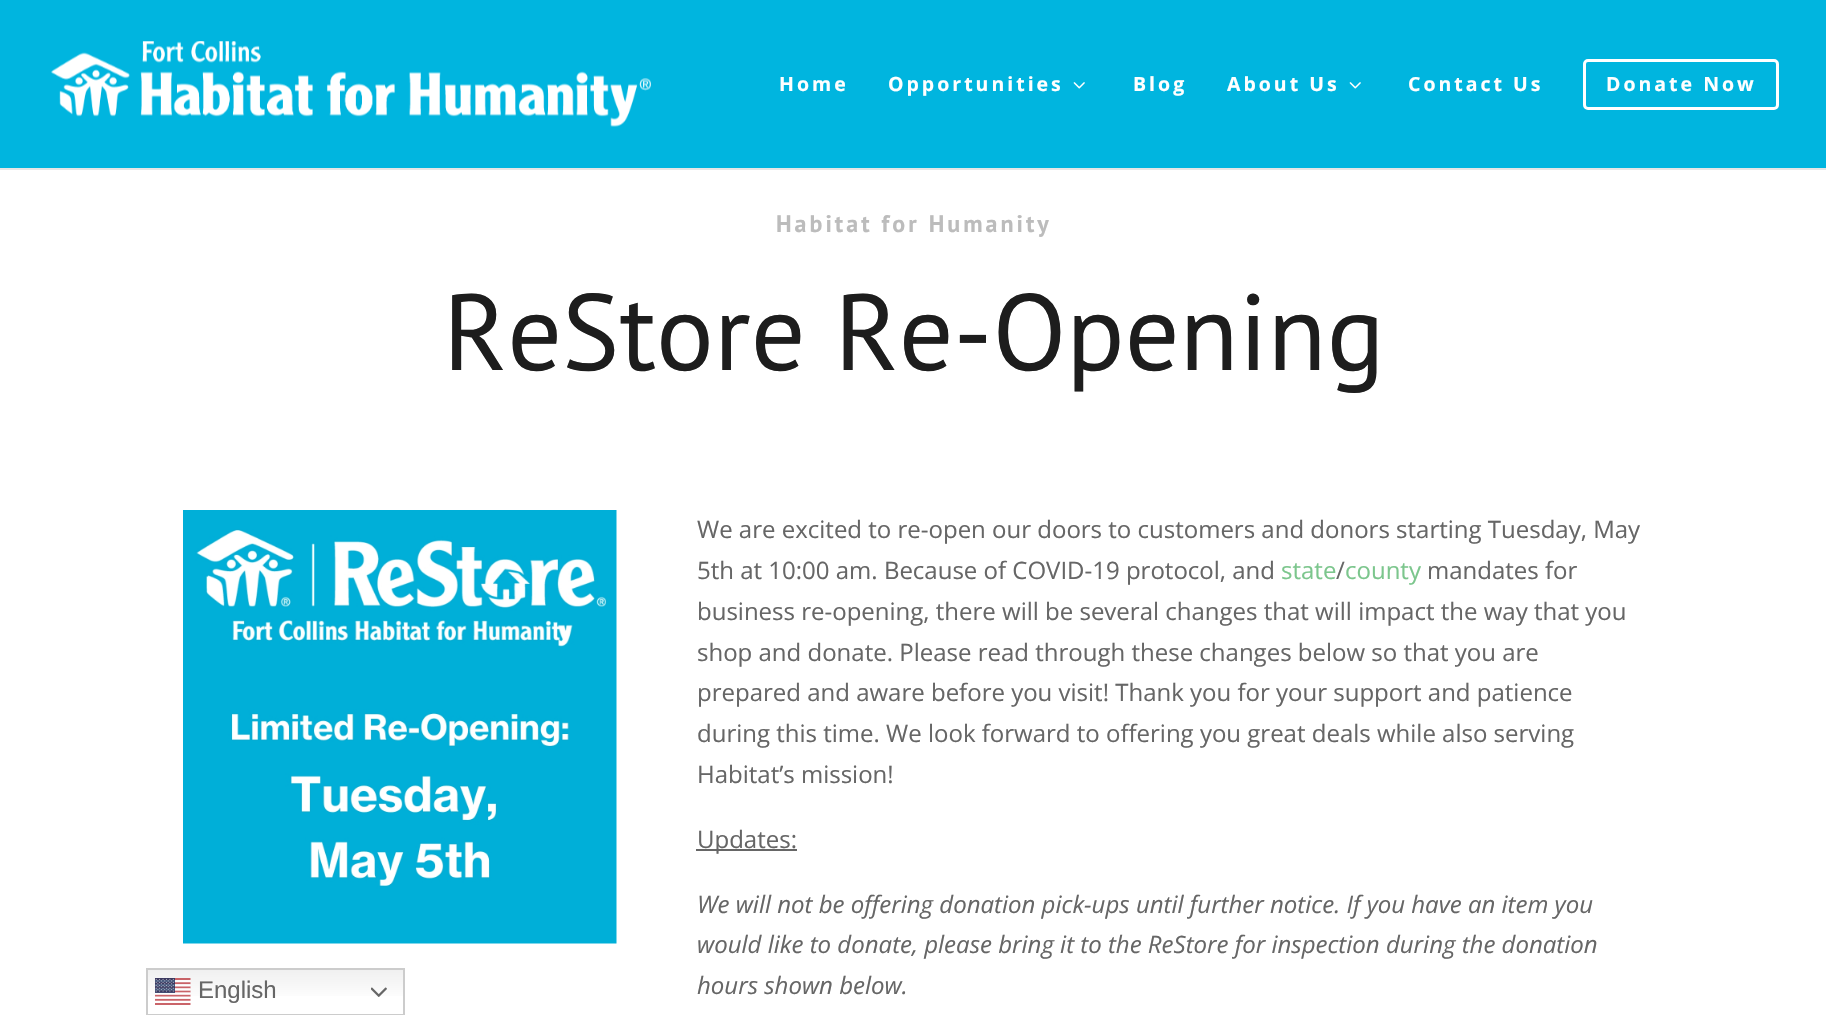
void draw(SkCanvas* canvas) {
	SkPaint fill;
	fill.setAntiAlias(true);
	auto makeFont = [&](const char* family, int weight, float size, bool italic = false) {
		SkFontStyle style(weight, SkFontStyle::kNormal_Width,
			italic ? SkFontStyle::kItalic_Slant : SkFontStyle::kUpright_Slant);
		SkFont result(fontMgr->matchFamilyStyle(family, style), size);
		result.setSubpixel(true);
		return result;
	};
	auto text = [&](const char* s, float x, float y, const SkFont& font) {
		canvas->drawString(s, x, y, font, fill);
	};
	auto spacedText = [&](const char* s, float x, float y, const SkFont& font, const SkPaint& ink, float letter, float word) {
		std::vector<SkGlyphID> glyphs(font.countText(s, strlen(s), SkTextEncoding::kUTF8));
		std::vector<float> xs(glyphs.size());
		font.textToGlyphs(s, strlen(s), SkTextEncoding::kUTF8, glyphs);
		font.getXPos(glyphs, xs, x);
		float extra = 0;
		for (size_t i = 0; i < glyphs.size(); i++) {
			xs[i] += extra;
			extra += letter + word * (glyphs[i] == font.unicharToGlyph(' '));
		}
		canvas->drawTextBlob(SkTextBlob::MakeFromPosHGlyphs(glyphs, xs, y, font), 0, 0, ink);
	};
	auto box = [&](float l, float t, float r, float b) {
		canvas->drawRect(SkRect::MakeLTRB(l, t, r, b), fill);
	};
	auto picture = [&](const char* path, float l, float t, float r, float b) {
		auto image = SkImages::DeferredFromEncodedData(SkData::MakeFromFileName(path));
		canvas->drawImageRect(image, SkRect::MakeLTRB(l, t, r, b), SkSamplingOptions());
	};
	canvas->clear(0xFFFFFFFF);
	{
		const SkColor colors[] = {0xFFEFEFEF, 0xFFFFFFFF};
		const float stops[] = {0, 0.7f};
		const SkPoint ends[] = {{275, 968}, {275, 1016}};
		fill.setShader(SkGradientShader::MakeLinear(ends, colors, stops, 2, SkTileMode::kClamp));
		fill.setAlpha(255);
	}
	box(148, 970, 403, 996);
	fill.setStyle(SkPaint::kStroke_Style);
	fill.setStrokeWidth(2);
	fill.setShader(nullptr);
	fill.setColor(0xFFCCCCCC);
	canvas->drawRect(SkRect::MakeLTRB(147, 969, 404, 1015), fill);
	picture("image0.png", 155, 978, 191, 1005);
	picture("image1.png", 371, 987, 387, 997);
	fill.setStyle(SkPaint::kFill_Style);
	fill.setColor(0xFFE6E6E6);
	box(0, 168, 1826, 170);
	fill.setColor(0xFF00B5DF);
	box(0, 0, 1826, 168);
	picture("image2.png", 51, 41, 651, 127);
	picture("image3.png", 1073, 82, 1085, 89);
	picture("image3.png", 1349, 82, 1361, 89);
	fill.setStyle(SkPaint::kStroke_Style);
	fill.setStrokeWidth(3);
	fill.setColor(0xFFFFFFFF);
	canvas->drawRoundRect(SkRect::MakeLTRB(1584.5f, 60.5f, 1777.5f, 108.5f), 3.5f, 3.5f, fill);
	picture("image4.png", 183, 510, 617, 944);
	fill.setStyle(SkPaint::kFill_Style);
	fill.setColor(0xFF666666);
	box(696, 849, 797, 851);
	auto font1 = makeFont("Liberation Sans", 400, 24);
	text("English", 198, 998, font1);
	auto font2 = makeFont("Open Sans", 700, 19.5f);
	fill.setColor(0xFFFFFFFF);
	spacedText("Home", 779, 91, font2, fill, 3, 0);
	spacedText("Opportunities", 888, 91, font2, fill, 3, 0);
	spacedText("Blog", 1133, 91, font2, fill, 3, 0);
	spacedText("About Us", 1227, 91, font2, fill, 3, 0);
	spacedText("Contact Us", 1408, 91, font2, fill, 3, 0);
	spacedText("Donate Now", 1606, 91, font2, fill, 3, 0);
	auto font3 = makeFont("PT Sans", 700, 24);
	fill.setColor(0xFFBCBCBC);
	spacedText("Habitat for Humanity", 776, 232, font3, fill, 3, 0);
	auto font4 = makeFont("PT Sans", 400, 108);
	fill.setColor(0xFF1D1D1D);
	text("ReStore Re-Opening", 443, 370, font4);
	auto font5 = makeFont("Open Sans", 400, 24);
	fill.setColor(0xFF666666);
	text("We are excited to re-open our doors to customers and donors starting Tuesday, May", 697, 538, font5);
	text("5th at 10:00 am. Because of COVID-19 protocol, and", 697, 579, font5);
	fill.setColor(0xFF7CC68D);
	text("state", 1281, 579, font5);
	fill.setColor(0xFF666666);
	text("/", 1336, 579, font5);
	fill.setColor(0xFF7CC68D);
	text("county", 1345, 579, font5);
	fill.setColor(0xFF666666);
	text("mandates for", 1427, 579, font5);
	text("business re-opening, there will be several changes that will impact the way that you", 697, 620, font5);
	text("shop and donate. Please read through these changes below so that you are", 697, 661, font5);
	text("prepared and aware before you visit! Thank you for your support and patience", 697, 701, font5);
	text("during this time. We look forward to offering you great deals while also serving", 697, 742, font5);
	text("Habitat’s mission!", 697, 783, font5);
	text("Updates:", 697, 848, font5);
	auto font6 = makeFont("Open Sans", 400, 24, true);
	text("We will not be offering donation pick-ups until further notice. If you have an item you", 697, 913, font6);
	text("would like to donate, please bring it to the ReStore for inspection during the donation", 697, 953, font6);
	text("hours shown below.", 697, 994, font6);
}
